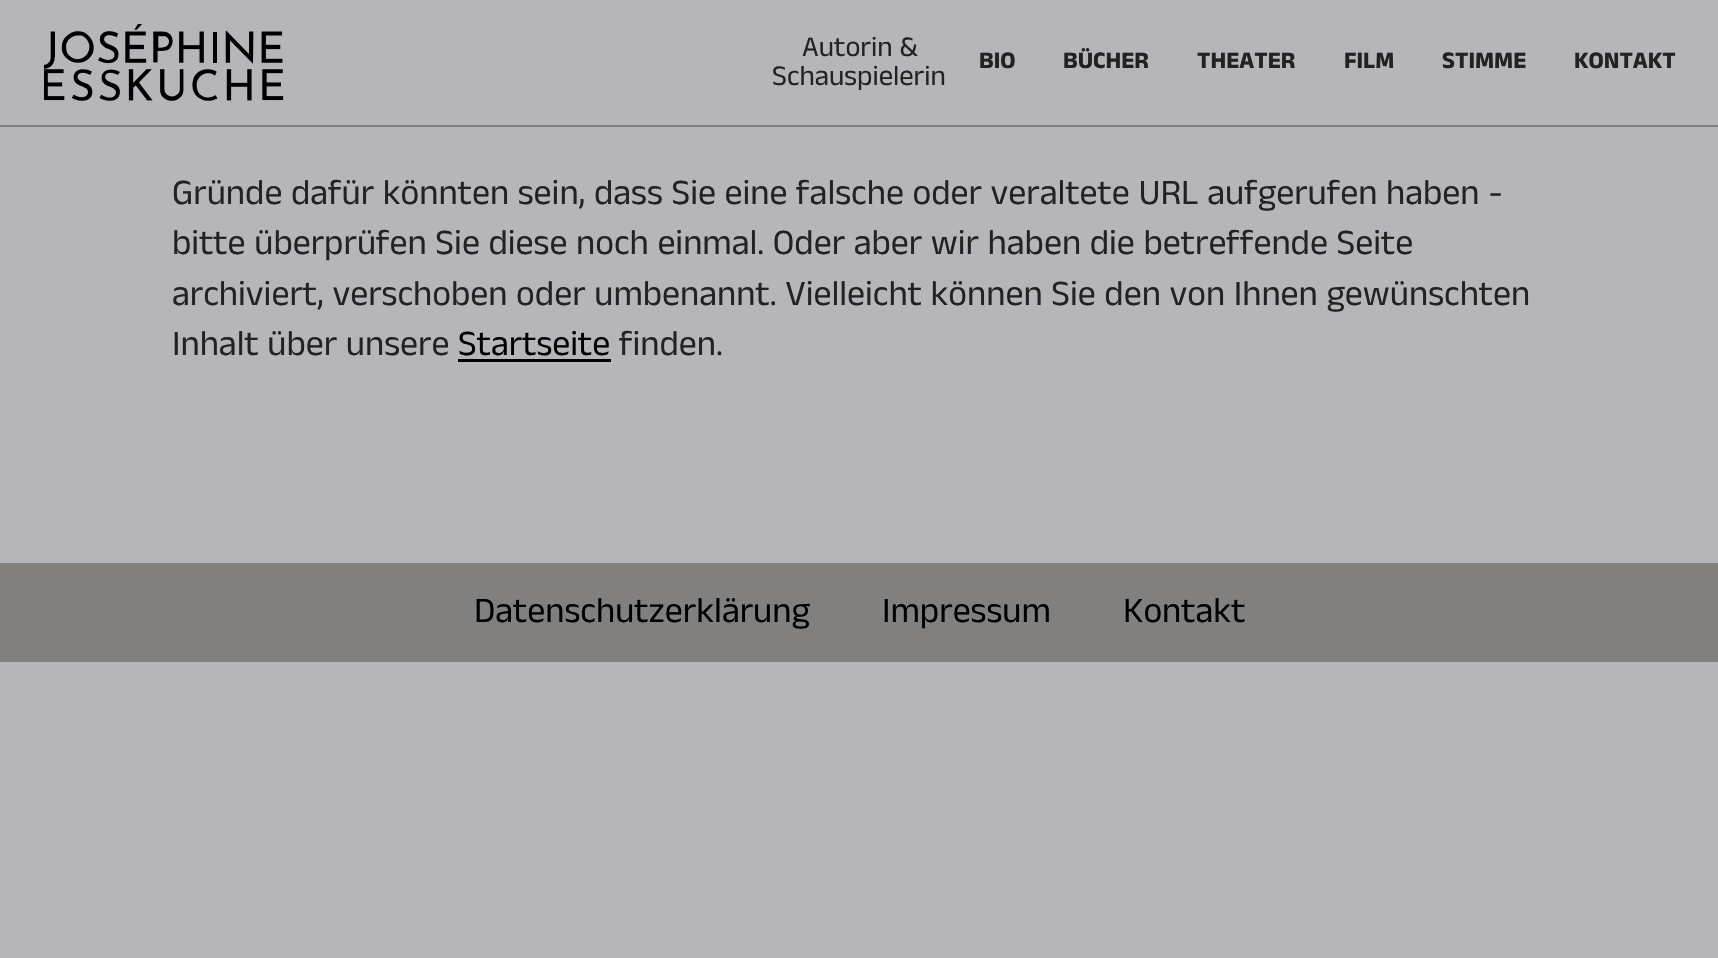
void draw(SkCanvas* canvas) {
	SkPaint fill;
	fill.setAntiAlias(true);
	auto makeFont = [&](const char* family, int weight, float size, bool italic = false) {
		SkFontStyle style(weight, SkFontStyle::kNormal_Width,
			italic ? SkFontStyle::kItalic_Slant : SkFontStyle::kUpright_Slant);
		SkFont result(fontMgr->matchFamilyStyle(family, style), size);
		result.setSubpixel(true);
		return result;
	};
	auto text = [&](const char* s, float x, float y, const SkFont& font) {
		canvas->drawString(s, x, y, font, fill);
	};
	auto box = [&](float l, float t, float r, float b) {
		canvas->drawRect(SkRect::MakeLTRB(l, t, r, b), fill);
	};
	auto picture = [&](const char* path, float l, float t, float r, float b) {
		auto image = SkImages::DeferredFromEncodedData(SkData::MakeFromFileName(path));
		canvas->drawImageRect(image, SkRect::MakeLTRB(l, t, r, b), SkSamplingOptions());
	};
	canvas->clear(0xFFB6B5BA);
	fill.setColor(0xFF827F7F);
	box(0, 125, 1718, 127);
	picture("image0.png", 44, 24, 284, 101);
	fill.setColor(0xFF000000);
	box(458, 359, 611, 362);
	fill.setColor(0xFF827F7F);
	box(0, 563, 1718, 662);
	auto font1 = makeFont("Anek Malayalam", 400, 28.75f);
	fill.setColor(0xFF222222);
	text("Autorin &", 802, 56, font1);
	text("Schauspielerin", 772, 85, font1);
	auto font2 = makeFont("Anek Malayalam", 700, 24);
	text("BIO", 979, 68, font2);
	text("BÜCHER", 1063, 68, font2);
	text("THEATER", 1197, 68, font2);
	text("FILM", 1344, 68, font2);
	text("STIMME", 1442, 68, font2);
	text("KONTAKT", 1574, 68, font2);
	auto font3 = makeFont("Anek Malayalam", 400, 36);
	text("Gründe dafür könnten sein, dass Sie eine falsche oder veraltete URL aufgerufen haben -", 172, 204, font3);
	text("bitte überprüfen Sie diese noch einmal. Oder aber wir haben die betreffende Seite", 172, 254, font3);
	text("archiviert, verschoben oder umbenannt. Vielleicht können Sie den von Ihnen gewünschten", 172, 305, font3);
	text("Inhalt über unsere", 172, 355, font3);
	fill.setColor(0xFF000000);
	text("Startseite", 458, 355, font3);
	fill.setColor(0xFF222222);
	text("finden.", 619, 355, font3);
	fill.setColor(0xFF000000);
	text("Datenschutzerklärung", 474, 622, font3);
	text("Impressum", 882, 622, font3);
	text("Kontakt", 1123, 622, font3);
}
